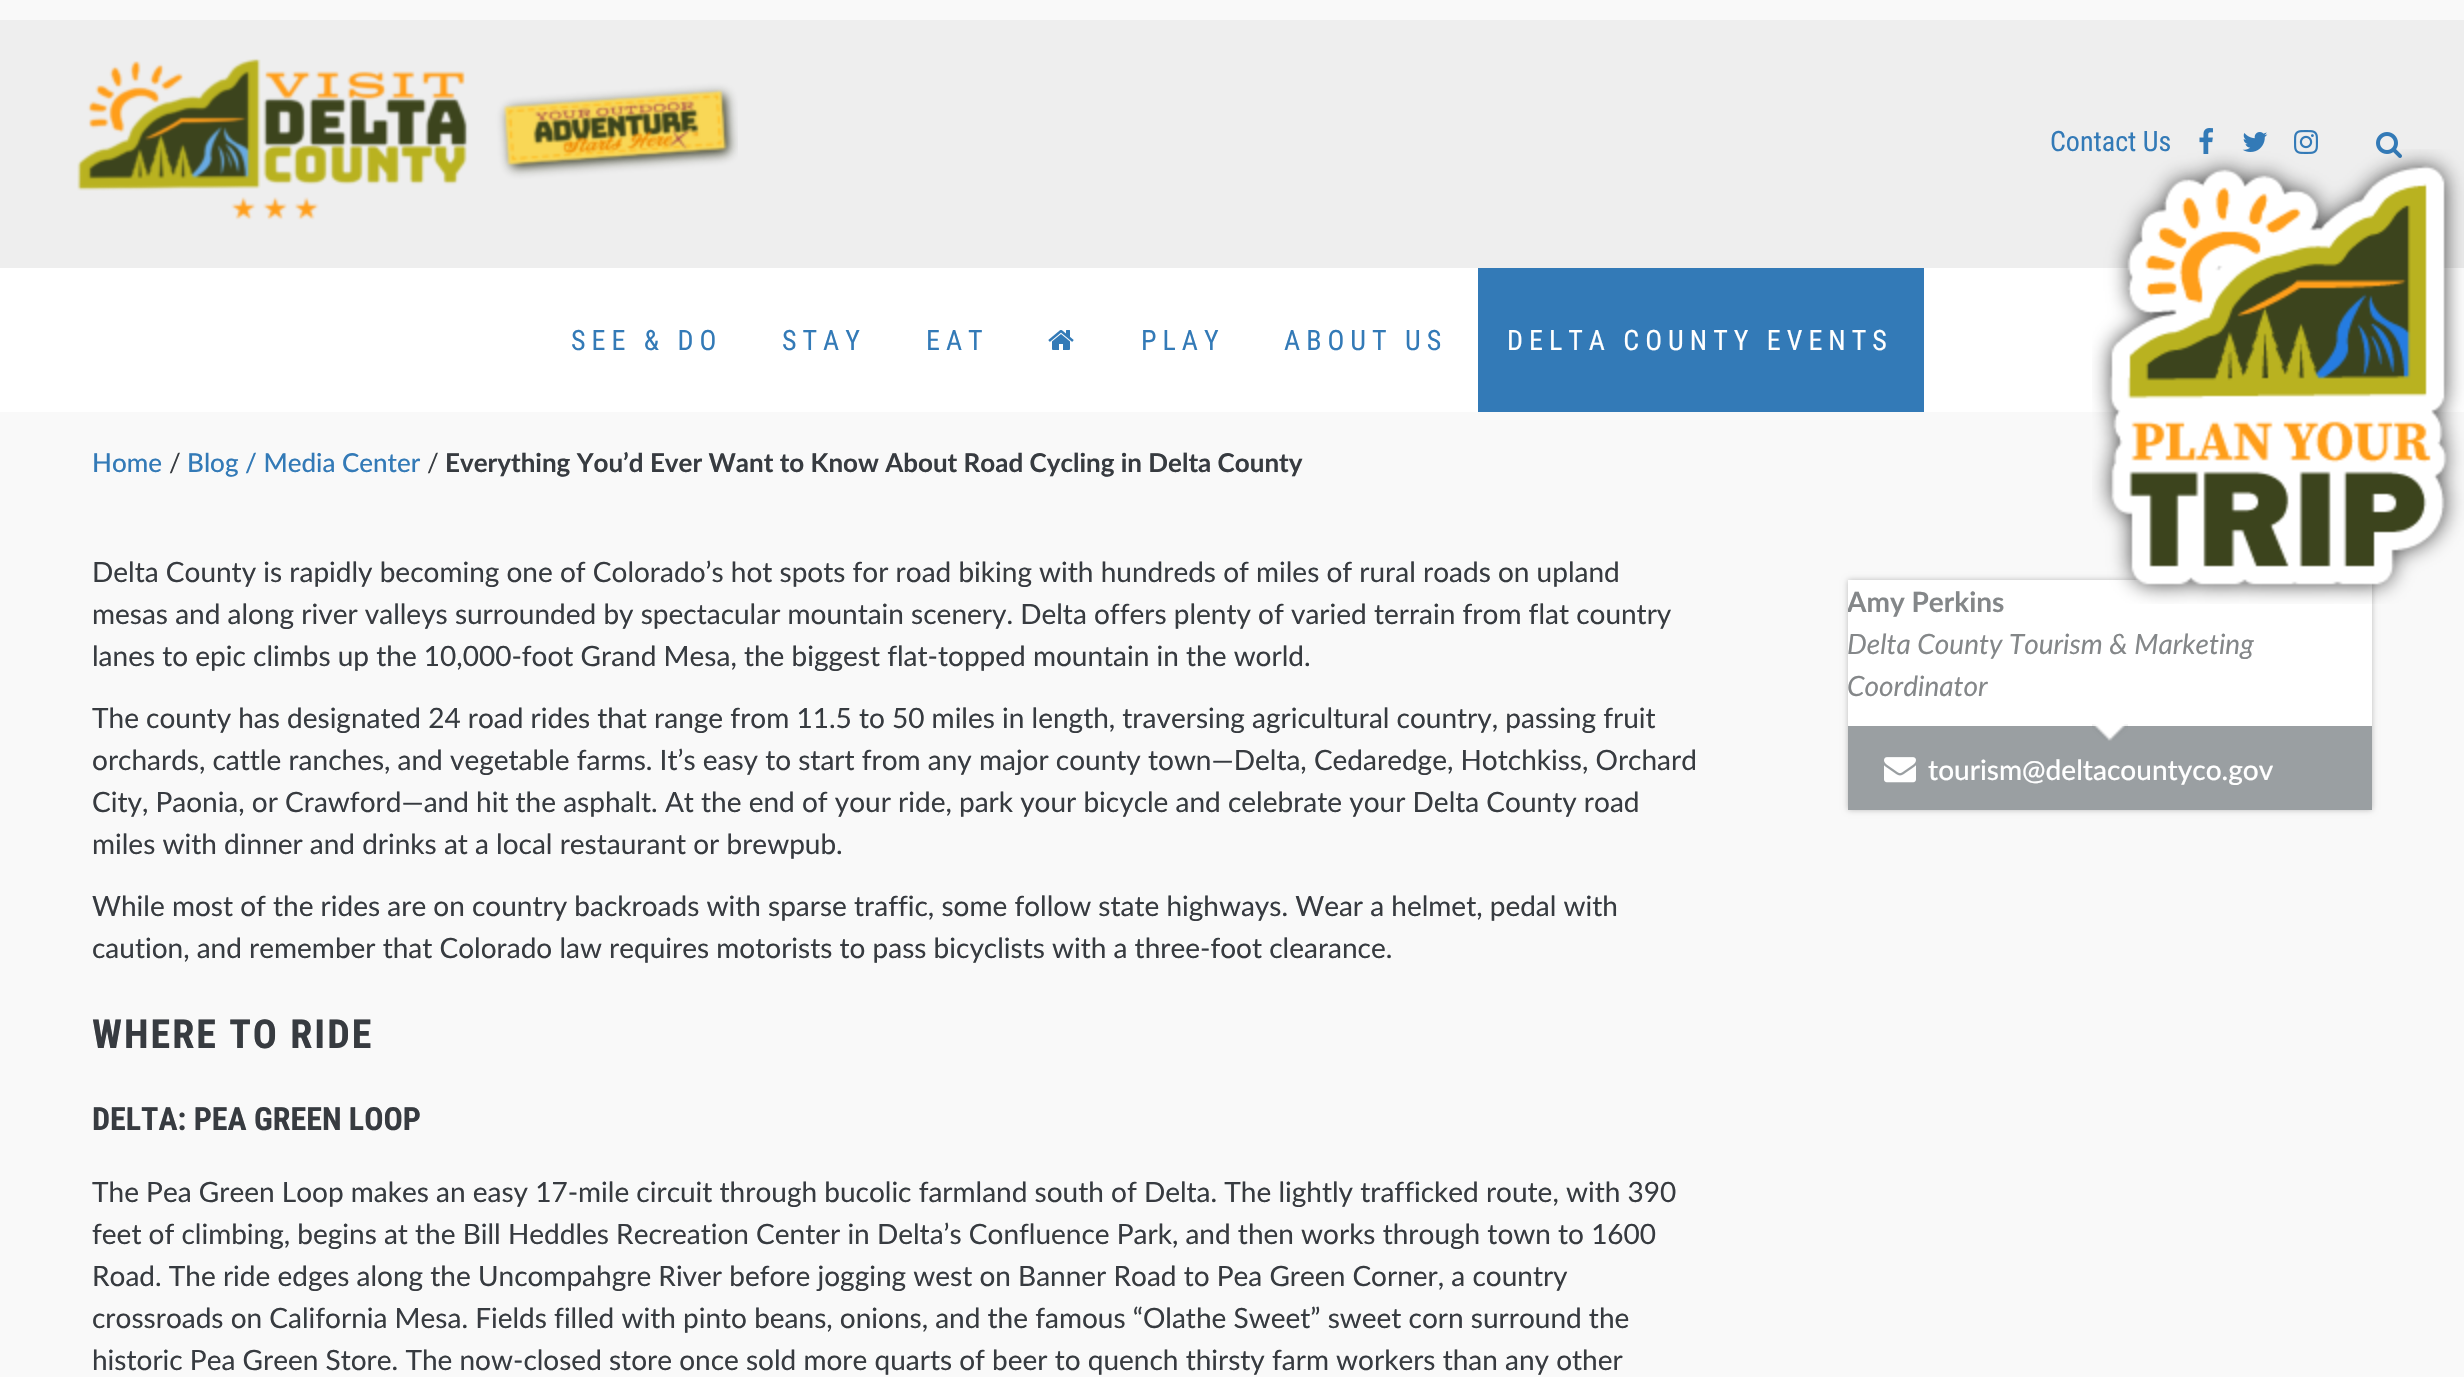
void draw(SkCanvas* canvas) {
	SkPaint fill;
	fill.setAntiAlias(true);
	auto makeFont = [&](const char* family, int weight, float size, bool italic = false) {
		SkFontStyle style(weight, SkFontStyle::kNormal_Width,
			italic ? SkFontStyle::kItalic_Slant : SkFontStyle::kUpright_Slant);
		SkFont result(fontMgr->matchFamilyStyle(family, style), size);
		result.setSubpixel(true);
		return result;
	};
	auto text = [&](const char* s, float x, float y, const SkFont& font) {
		canvas->drawString(s, x, y, font, fill);
	};
	auto spacedText = [&](const char* s, float x, float y, const SkFont& font, const SkPaint& ink, float letter, float word) {
		std::vector<SkGlyphID> glyphs(font.countText(s, strlen(s), SkTextEncoding::kUTF8));
		std::vector<float> xs(glyphs.size());
		font.textToGlyphs(s, strlen(s), SkTextEncoding::kUTF8, glyphs);
		font.getXPos(glyphs, xs, x);
		float extra = 0;
		for (size_t i = 0; i < glyphs.size(); i++) {
			xs[i] += extra;
			extra += letter + word * (glyphs[i] == font.unicharToGlyph(' '));
		}
		canvas->drawTextBlob(SkTextBlob::MakeFromPosHGlyphs(glyphs, xs, y, font), 0, 0, ink);
	};
	auto box = [&](float l, float t, float r, float b) {
		canvas->drawRect(SkRect::MakeLTRB(l, t, r, b), fill);
	};
	auto picture = [&](const char* path, float l, float t, float r, float b) {
		auto image = SkImages::DeferredFromEncodedData(SkData::MakeFromFileName(path));
		canvas->drawImageRect(image, SkRect::MakeLTRB(l, t, r, b), SkSamplingOptions());
	};
	canvas->clear(0xFFF9F9F9);
	fill.setColor(0xFFEEEEEE);
	box(0, 20, 2464, 268);
	picture("image0.png", 77, 58, 738, 220);
	picture("image1.png", 2199, 128, 2213, 154);
	picture("image2.png", 2242, 132, 2268, 152);
	picture("image3.png", 2294, 130, 2318, 154);
	picture("image4.png", 2376, 132, 2402, 158);
	fill.setColor(0xFFFFFFFF);
	box(0, 268, 2464, 412);
	picture("image5.png", 1048, 330, 1074, 350);
	fill.setColor(0xFF337AB7);
	box(1478, 268, 1924, 412);
	fill.setColor(0xFFBBBBBB);
	fill.setMaskFilter(SkMaskFilter::MakeBlur(kNormal_SkBlurStyle, 3));
	canvas->drawRect(SkRect::MakeLTRB(1848, 580, 2372, 810), fill);
	fill.setMaskFilter(nullptr);
	fill.setColor(0xFF9A9FA2);
	box(1848, 726, 2372, 810);
	fill.setColor(0xFFFFFFFF);
	box(1848, 580, 2372, 726);
	picture("image7.png", 2092, 724, 2128, 741);
	picture("image8.png", 1884, 757, 1916, 783);
	auto font1 = makeFont("Roboto Condensed", 400, 28);
	fill.setColor(0xFF337AB7);
	text("Contact Us", 2050, 151, font1);
	spacedText("SEE & DO", 571, 350, font1, fill, 6, 0);
	spacedText("STAY", 782, 350, font1, fill, 6, 0);
	spacedText("EAT", 926, 350, font1, fill, 6, 0);
	spacedText("PLAY", 1141, 350, font1, fill, 6, 0);
	spacedText("ABOUT US", 1284, 350, font1, fill, 6, 0);
	fill.setColor(0xFFFFFFFF);
	spacedText("DELTA COUNTY EVENTS", 1507, 350, font1, fill, 6, 0);
	picture("image6.png", 2092, 149, 2464, 604);
	auto font2 = makeFont("Lato", 500, 26);
	fill.setColor(0xFF337AB7);
	text("Home", 92, 472, font2);
	auto font3 = makeFont("Lato", 400, 26);
	fill.setColor(0xFF373B40);
	text("/", 169, 472, font3);
	fill.setColor(0xFF337AB7);
	text("Blog / Media Center", 187, 472, font2);
	fill.setColor(0xFF373B40);
	text("/", 427, 472, font3);
	auto font4 = makeFont("Lato", 700, 26);
	text("Everything You’d Ever Want to Know About Road Cycling in Delta County", 445, 472, font4);
	auto font5 = makeFont("Lato", 400, 28);
	text("Delta County is rapidly becoming one of Colorado’s hot spots for road biking with hundreds of miles of rural roads on upland", 92, 582, font5);
	text("mesas and along river valleys surrounded by spectacular mountain scenery. Delta offers plenty of varied terrain from flat country", 92, 624, font5);
	text("lanes to epic climbs up the 10,000-foot Grand Mesa, the biggest flat-topped mountain in the world.", 92, 666, font5);
	text("The county has designated 24 road rides that range from 11.5 to 50 miles in length, traversing agricultural country, passing fruit", 92, 728, font5);
	text("orchards, cattle ranches, and vegetable farms. It’s easy to start from any major county town—Delta, Cedaredge, Hotchkiss, Orchard", 92, 770, font5);
	text("City, Paonia, or Crawford—and hit the asphalt. At the end of your ride, park your bicycle and celebrate your Delta County road", 92, 812, font5);
	text("miles with dinner and drinks at a local restaurant or brewpub.", 92, 854, font5);
	text("While most of the rides are on country backroads with sparse traffic, some follow state highways. Wear a helmet, pedal with", 92, 916, font5);
	text("caution, and remember that Colorado law requires motorists to pass bicyclists with a three-foot clearance.", 92, 958, font5);
	auto font6 = makeFont("Roboto Condensed", 700, 40);
	spacedText("WHERE TO RIDE", 92, 1048, font6, fill, 2, 0);
	auto font7 = makeFont("Roboto Condensed", 700, 32);
	text("DELTA: PEA GREEN LOOP", 92, 1130, font7);
	text("The Pea Green Loop makes an easy 17-mile circuit through bucolic farmland south of Delta. The lightly trafficked route, with 390", 92, 1202, font5);
	text("feet of climbing, begins at the Bill Heddles Recreation Center in Delta’s Confluence Park, and then works through town to 1600", 92, 1244, font5);
	text("Road. The ride edges along the Uncompahgre River before jogging west on Banner Road to Pea Green Corner, a country", 92, 1286, font5);
	text("crossroads on California Mesa. Fields filled with pinto beans, onions, and the famous “Olathe Sweet” sweet corn surround the", 92, 1328, font5);
	text("historic Pea Green Store. The now-closed store once sold more quarts of beer to quench thirsty farm workers than any other", 92, 1370, font5);
	canvas->save();
	canvas->clipRect(SkRect::MakeLTRB(1848, 580, 2372, 810));
	auto font8 = makeFont("Lato", 700, 28);
	fill.setColor(0xFF848789);
	text("Amy Perkins", 1847, 612, font8);
	canvas->restore();
	auto font9 = makeFont("Lato", 400, 28, true);
	text("Delta County Tourism & Marketing", 1847, 654, font9);
	text("Coordinator", 1847, 696, font9);
	auto font10 = makeFont("Lato", 500, 28);
	fill.setColor(0xFFFFFFFF);
	text("tourism@deltacountyco.gov", 1928, 780, font10);
}
